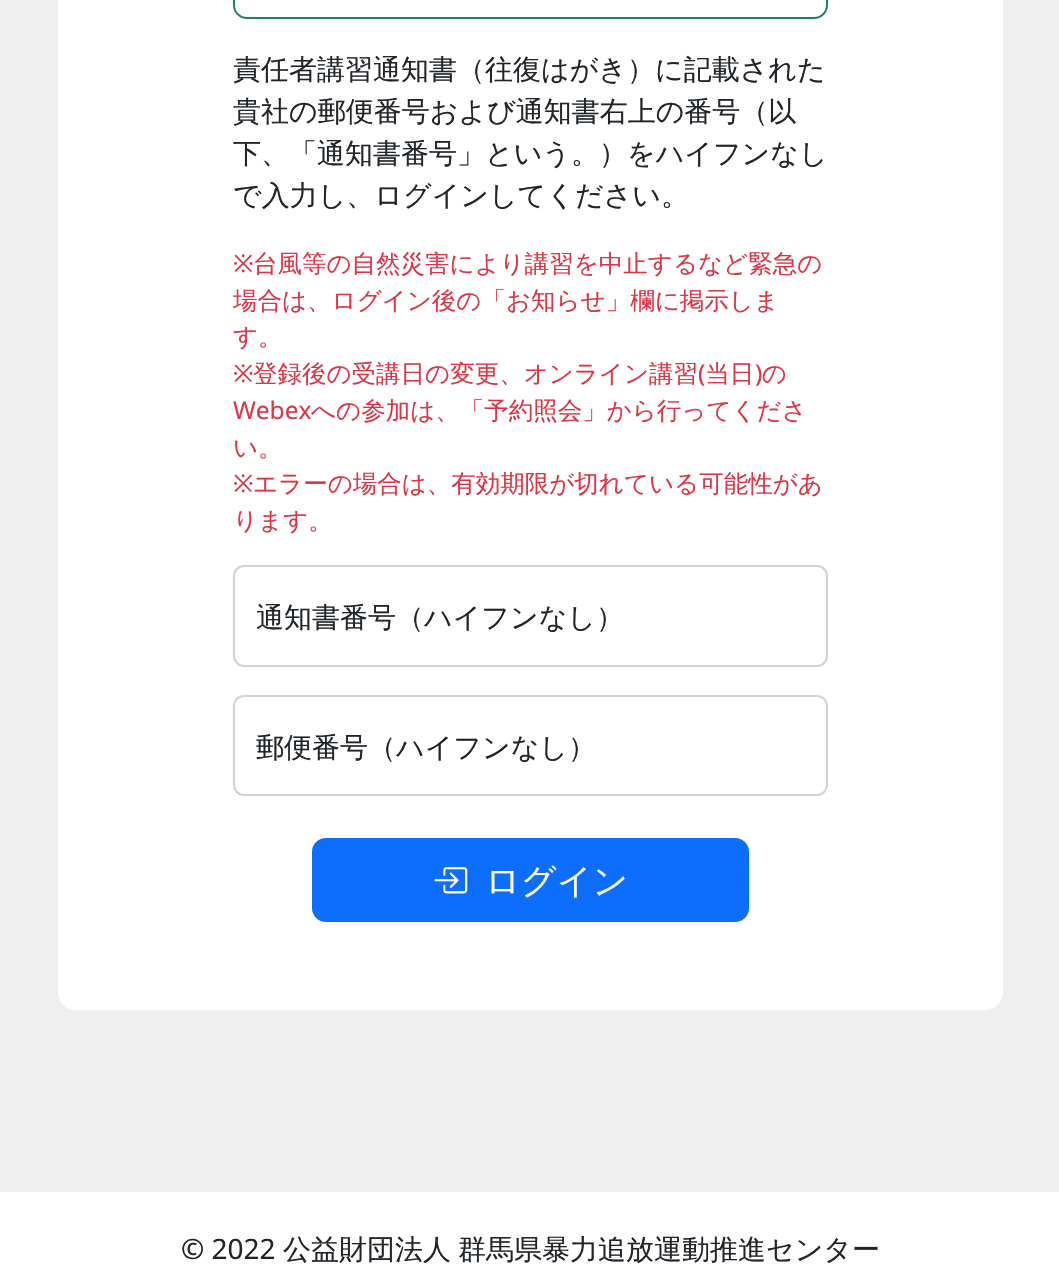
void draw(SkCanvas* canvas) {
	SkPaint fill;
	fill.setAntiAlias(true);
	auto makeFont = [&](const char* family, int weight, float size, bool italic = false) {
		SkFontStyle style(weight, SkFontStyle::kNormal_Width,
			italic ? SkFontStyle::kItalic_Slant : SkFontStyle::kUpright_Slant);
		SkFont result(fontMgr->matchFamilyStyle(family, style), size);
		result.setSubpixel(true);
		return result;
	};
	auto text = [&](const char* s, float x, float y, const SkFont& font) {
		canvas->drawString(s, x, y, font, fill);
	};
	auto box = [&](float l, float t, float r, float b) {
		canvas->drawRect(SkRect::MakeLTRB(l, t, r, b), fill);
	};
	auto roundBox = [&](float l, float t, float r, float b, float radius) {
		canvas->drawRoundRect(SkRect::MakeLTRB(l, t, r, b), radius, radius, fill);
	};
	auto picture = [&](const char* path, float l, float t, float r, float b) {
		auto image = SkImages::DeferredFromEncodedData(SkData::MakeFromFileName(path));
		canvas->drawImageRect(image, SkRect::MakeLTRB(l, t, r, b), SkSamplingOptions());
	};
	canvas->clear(0xFFEFEFEF);
	fill.setColor(0xFFFFFFFF);
	roundBox(58, -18, 1003, 1010, 18);
	fill.setStyle(SkPaint::kStroke_Style);
	fill.setStrokeWidth(2);
	fill.setColor(0xFF198754);
	canvas->drawRoundRect(SkRect::MakeLTRB(234, -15, 827, 18), 13, 13, fill);
	fill.setColor(0xFFCED4DA);
	canvas->drawRoundRect(SkRect::MakeLTRB(234, 566, 827, 666), 10, 10, fill);
	canvas->drawRoundRect(SkRect::MakeLTRB(234, 696, 827, 795), 10, 10, fill);
	fill.setStyle(SkPaint::kFill_Style);
	fill.setColor(0xFF0D6EFD);
	canvas->drawRoundRect(SkRect::MakeLTRB(313, 839, 748, 921), 13, 13, fill);
	fill.setStyle(SkPaint::kStroke_Style);
	canvas->drawRoundRect(SkRect::MakeLTRB(313, 839, 748, 921), 13, 13, fill);
	picture("image0.png", 434, 867, 468, 894);
	fill.setStyle(SkPaint::kFill_Style);
	fill.setColor(0xFFFFFFFF);
	box(0, 1192, 1059, 1267);
	auto font1 = makeFont("WenQuanYi Zen Hei", 500, 28);
	fill.setColor(0xFF212529);
	text("責任者講習通知書（往復はがき）に記載された", 233, 79, font1);
	text("貴社の郵便番号および通知書右上の番号（以", 233, 121, font1);
	text("下、「通知書番号」という。）をハイフンなし", 233, 163, font1);
	text("で入力し、ログインしてください。", 233, 205, font1);
	auto font2 = makeFont("Noto Sans", 400, 24.5f);
	fill.setColor(0xFFDC3545);
	text("※", 233, 272, font2);
	auto font3 = makeFont("WenQuanYi Zen Hei", 500, 24.5f);
	text("台風等の自然災害により講習を中止するなど緊急の", 253, 272, font3);
	text("場合は、ログイン後の「お知らせ」欄に掲示しま", 233, 309, font3);
	text("す。", 233, 345, font3);
	text("※", 233, 382, font2);
	text("登録後の受講日の変更、オンライン講習 当日 の", 253, 382, font3);
	text("(", 698, 382, font2);
	text(")", 755, 382, font2);
	text("Webex", 233, 419, font2);
	text("への参加は、「予約照会」から行ってくださ", 311, 419, font3);
	text("い。", 233, 456, font3);
	text("※", 233, 492, font2);
	text("エラーの場合は、有効期限が切れている可能性があ", 253, 492, font3);
	text("ります。", 233, 529, font3);
	fill.setColor(0xFF212529);
	text("通知書番号（ハイフンなし）", 256, 627, font1);
	text("郵便番号（ハイフンなし）", 256, 757, font1);
	auto font4 = makeFont("WenQuanYi Zen Hei", 500, 35);
	fill.setColor(0xFFFFFFFF);
	text("ログイン", 485, 893, font4);
	auto font5 = makeFont("Noto Sans", 400, 28);
	fill.setColor(0xFF212529);
	text("© 2022", 181, 1259, font5);
	text("公益財団法人", 283, 1259, font1);
	text("群馬県暴力追放運動推進センター", 458, 1259, font1);
}
